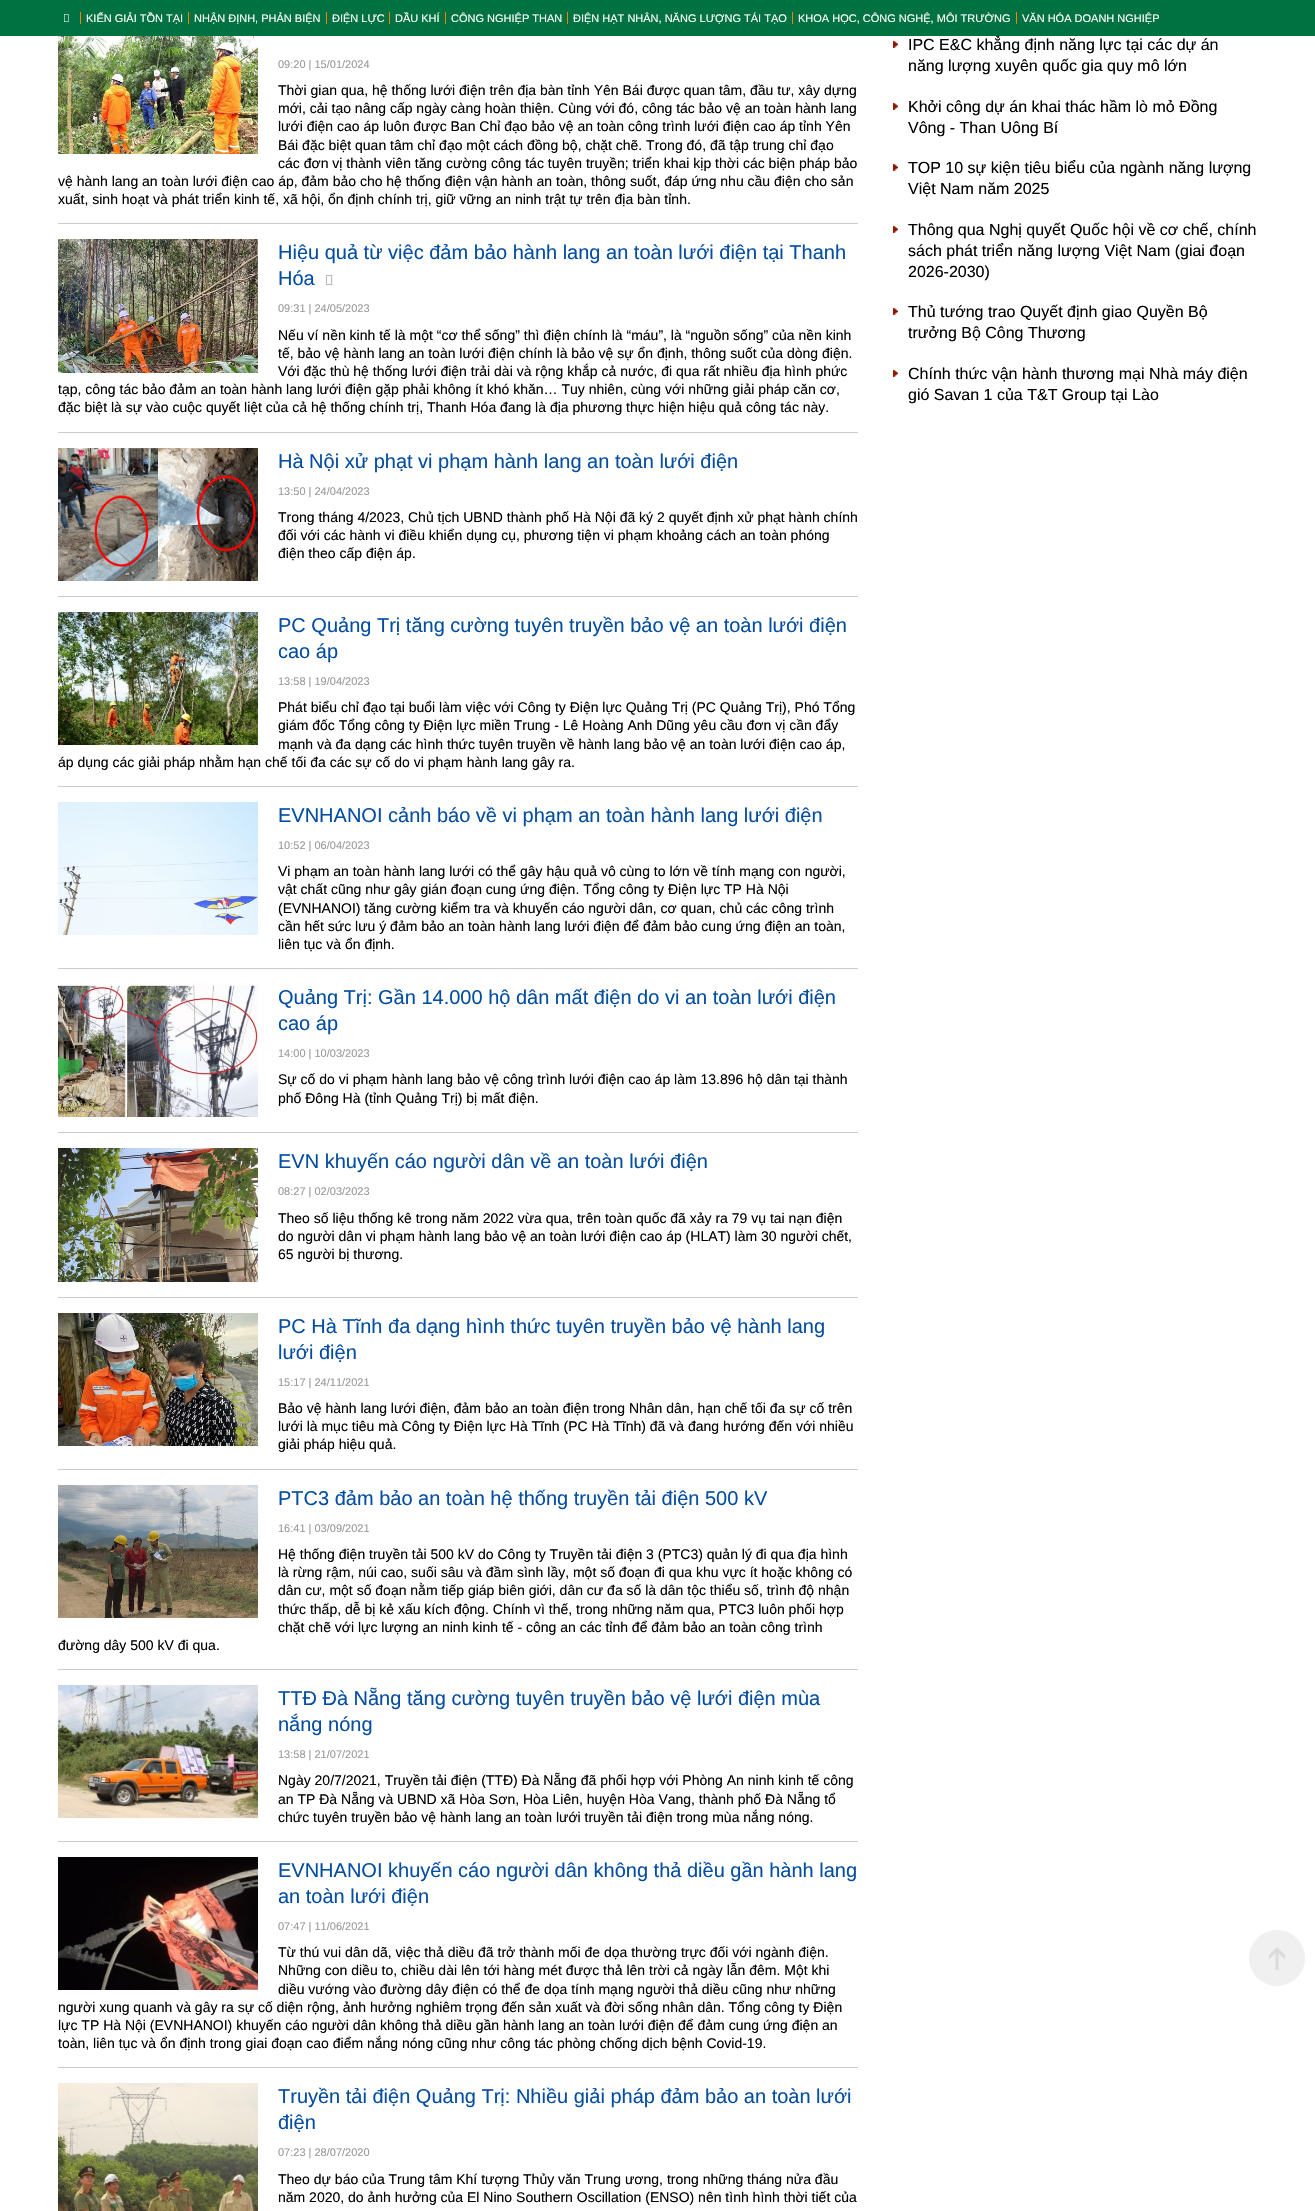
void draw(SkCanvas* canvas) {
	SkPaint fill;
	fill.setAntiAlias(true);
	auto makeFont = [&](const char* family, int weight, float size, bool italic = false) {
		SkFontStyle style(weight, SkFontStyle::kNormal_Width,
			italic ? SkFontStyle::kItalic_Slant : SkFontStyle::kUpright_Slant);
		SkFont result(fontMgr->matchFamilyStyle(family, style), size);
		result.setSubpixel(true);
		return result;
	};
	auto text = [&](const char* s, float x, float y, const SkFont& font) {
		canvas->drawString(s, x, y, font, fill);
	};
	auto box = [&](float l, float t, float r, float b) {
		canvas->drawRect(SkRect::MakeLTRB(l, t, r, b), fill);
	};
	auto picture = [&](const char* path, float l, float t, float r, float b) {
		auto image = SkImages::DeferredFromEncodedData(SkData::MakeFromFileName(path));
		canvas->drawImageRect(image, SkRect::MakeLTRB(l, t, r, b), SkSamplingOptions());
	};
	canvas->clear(0xFFFFFFFF);
	picture("image1.png", 58, 36, 258, 154);
	fill.setColor(0xFFCCCCCC);
	box(58, 223, 858, 224);
	picture("image2.png", 58, 239, 258, 373);
	picture("image3.png", 326, 275, 333, 285);
	box(58, 432, 858, 433);
	picture("image4.png", 58, 448, 258, 581);
	box(58, 596, 858, 597);
	picture("image5.png", 58, 612, 258, 745);
	box(58, 786, 858, 787);
	picture("image6.png", 58, 802, 258, 935);
	box(58, 968, 858, 969);
	picture("image7.png", 58, 984, 258, 1117);
	box(58, 1132, 858, 1133);
	picture("image8.png", 58, 1148, 258, 1282);
	box(58, 1297, 858, 1298);
	picture("image9.png", 58, 1313, 258, 1446);
	box(58, 1469, 858, 1470);
	picture("image10.png", 58, 1485, 258, 1618);
	box(58, 1669, 858, 1670);
	picture("image11.png", 58, 1685, 258, 1818);
	box(58, 1841, 858, 1842);
	picture("image12.png", 58, 1857, 258, 1990);
	box(58, 2067, 858, 2068);
	picture("image13.png", 58, 2083, 258, 2211);
	picture("image14.png", 893, 41, 898, 48);
	picture("image14.png", 893, 103, 898, 110);
	picture("image14.png", 893, 164, 898, 171);
	picture("image14.png", 893, 226, 898, 233);
	picture("image14.png", 893, 308, 898, 315);
	picture("image14.png", 893, 370, 898, 377);
	picture("image15.png", 1249, 1930, 1305, 1986);
	auto font1 = makeFont("Liberation Sans", 400, 11);
	fill.setColor(0xFF999999);
	text("09:20 | 15/01/2024", 278, 68, font1);
	auto font2 = makeFont("Liberation Sans", 400, 14);
	fill.setColor(0xFF000000);
	text("Thời gian qua, hệ thống lưới điện trên địa bàn tỉnh Yên Bái được quan tâm, đầu tư, xây dựng", 278, 95, font2);
	text("mới, cải tạo nâng cấp ngày càng hoàn thiện. Cùng với đó, công tác bảo vệ an toàn hành lang", 278, 113, font2);
	text("lưới điện cao áp luôn được Ban Chỉ đạo bảo vệ an toàn công trình lưới điện cao áp tỉnh Yên", 278, 131, font2);
	text("Bái đặc biệt quan tâm chỉ đạo một cách đồng bộ, chặt chẽ. Trong đó, đã tập trung chỉ đạo", 278, 150, font2);
	text("các đơn vị thành viên tăng cường công tác tuyên truyền; triển khai kịp thời các biện pháp bảo", 278, 168, font2);
	text("vệ hành lang an toàn lưới điện cao áp, đảm bảo cho hệ thống điện vận hành an toàn, thông suốt, đáp ứng nhu cầu điện cho sản", 58, 186, font2);
	text("xuất, sinh hoạt và phát triển kinh tế, xã hội, ổn định chính trị, giữ vững an ninh trật tự trên địa bàn tỉnh.", 58, 204, font2);
	auto font3 = makeFont("Liberation Sans", 400, 20);
	fill.setColor(0xFF034DA2);
	text("Hiệu quả từ việc đảm bảo hành lang an toàn lưới điện tại Thanh", 278, 259, font3);
	text("Hóa", 278, 285, font3);
	fill.setColor(0xFF999999);
	text("09:31 | 24/05/2023", 278, 312, font1);
	fill.setColor(0xFF000000);
	text("Nếu ví nền kinh tế là một “cơ thể sống” thì điện chính là “máu”, là “nguồn sống” của nền kinh", 278, 340, font2);
	text("tế, bảo vệ hành lang an toàn lưới điện chính là bảo vệ sự ổn định, thông suốt của dòng điện.", 278, 358, font2);
	text("Với đặc thù hệ thống lưới điện trải dài và rộng khắp cả nước, đi qua rất nhiều địa hình phức", 278, 376, font2);
	text("tạp, công tác bảo đảm an toàn hành lang lưới điện gặp phải không ít khó khăn… Tuy nhiên, cùng với những giải pháp căn cơ,", 58, 394, font2);
	text("đặc biệt là sự vào cuộc quyết liệt của cả hệ thống chính trị, Thanh Hóa đang là địa phương thực hiện hiệu quả công tác này.", 58, 412, font2);
	fill.setColor(0xFF034DA2);
	text("Hà Nội xử phạt vi phạm hành lang an toàn lưới điện", 278, 468, font3);
	fill.setColor(0xFF999999);
	text("13:50 | 24/04/2023", 278, 495, font1);
	fill.setColor(0xFF000000);
	text("Trong tháng 4/2023, Chủ tịch UBND thành phố Hà Nội đã ký 2 quyết định xử phạt hành chính", 278, 522, font2);
	text("đối với các hành vi điều khiển dụng cụ, phương tiện vi phạm khoảng cách an toàn phóng", 278, 540, font2);
	text("điện theo cấp điện áp.", 278, 558, font2);
	fill.setColor(0xFF034DA2);
	text("PC Quảng Trị tăng cường tuyên truyền bảo vệ an toàn lưới điện", 278, 632, font3);
	text("cao áp", 278, 658, font3);
	fill.setColor(0xFF999999);
	text("13:58 | 19/04/2023", 278, 685, font1);
	fill.setColor(0xFF000000);
	text("Phát biểu chỉ đạo tại buổi làm việc với Công ty Điện lực Quảng Trị (PC Quảng Trị), Phó Tổng", 278, 712, font2);
	text("giám đốc Tổng công ty Điện lực miền Trung - Lê Hoàng Anh Dũng yêu cầu đơn vị cần đẩy", 278, 730, font2);
	text("mạnh và đa dạng các hình thức tuyên truyền về hành lang bảo vệ an toàn lưới điện cao áp,", 278, 749, font2);
	text("áp dụng các giải pháp nhằm hạn chế tối đa các sự cố do vi phạm hành lang gây ra.", 58, 767, font2);
	fill.setColor(0xFF034DA2);
	text("EVNHANOI cảnh báo về vi phạm an toàn hành lang lưới điện", 278, 822, font3);
	fill.setColor(0xFF999999);
	text("10:52 | 06/04/2023", 278, 849, font1);
	fill.setColor(0xFF000000);
	text("Vi phạm an toàn hành lang lưới có thể gây hậu quả vô cùng to lớn về tính mạng con người,", 278, 876, font2);
	text("vật chất cũng như gây gián đoạn cung ứng điện. Tổng công ty Điện lực TP Hà Nội", 278, 894, font2);
	text("(EVNHANOI) tăng cường kiểm tra và khuyến cáo người dân, cơ quan, chủ các công trình", 278, 913, font2);
	text("cần hết sức lưu ý đảm bảo an toàn hành lang lưới điện để đảm bảo cung ứng điện an toàn,", 278, 931, font2);
	text("liên tục và ổn định.", 278, 949, font2);
	fill.setColor(0xFF034DA2);
	text("Quảng Trị: Gần 14.000 hộ dân mất điện do vi an toàn lưới điện", 278, 1004, font3);
	text("cao áp", 278, 1030, font3);
	fill.setColor(0xFF999999);
	text("14:00 | 10/03/2023", 278, 1057, font1);
	fill.setColor(0xFF000000);
	text("Sự cố do vi phạm hành lang bảo vệ công trình lưới điện cao áp làm 13.896 hộ dân tại thành", 278, 1084, font2);
	text("phố Đông Hà (tỉnh Quảng Trị) bị mất điện.", 278, 1103, font2);
	fill.setColor(0xFF034DA2);
	text("EVN khuyến cáo người dân về an toàn lưới điện", 278, 1168, font3);
	fill.setColor(0xFF999999);
	text("08:27 | 02/03/2023", 278, 1195, font1);
	fill.setColor(0xFF000000);
	text("Theo số liệu thống kê trong năm 2022 vừa qua, trên toàn quốc đã xảy ra 79 vụ tai nạn điện", 278, 1223, font2);
	text("do người dân vi phạm hành lang bảo vệ an toàn lưới điện cao áp (HLAT) làm 30 người chết,", 278, 1241, font2);
	text("65 người bị thương.", 278, 1259, font2);
	fill.setColor(0xFF034DA2);
	text("PC Hà Tĩnh đa dạng hình thức tuyên truyền bảo vệ hành lang", 278, 1333, font3);
	text("lưới điện", 278, 1359, font3);
	fill.setColor(0xFF999999);
	text("15:17 | 24/11/2021", 278, 1386, font1);
	fill.setColor(0xFF000000);
	text("Bảo vệ hành lang lưới điện, đảm bảo an toàn điện trong Nhân dân, hạn chế tối đa sự cố trên", 278, 1413, font2);
	text("lưới là mục tiêu mà Công ty Điện lực Hà Tĩnh (PC Hà Tĩnh) đã và đang hướng đến với nhiều", 278, 1431, font2);
	text("giải pháp hiệu quả.", 278, 1449, font2);
	fill.setColor(0xFF034DA2);
	text("PTC3 đảm bảo an toàn hệ thống truyền tải điện 500 kV", 278, 1505, font3);
	fill.setColor(0xFF999999);
	text("16:41 | 03/09/2021", 278, 1532, font1);
	fill.setColor(0xFF000000);
	text("Hệ thống điện truyền tải 500 kV do Công ty Truyền tải điện 3 (PTC3) quản lý đi qua địa hình", 278, 1559, font2);
	text("là rừng rậm, núi cao, suối sâu và đầm sình lầy, một số đoạn đi qua khu vực ít hoặc không có", 278, 1577, font2);
	text("dân cư, một số đoạn nằm tiếp giáp biên giới, dân cư đa số là dân tộc thiểu số, trình độ nhận", 278, 1595, font2);
	text("thức thấp, dễ bị kẻ xấu kích động. Chính vì thế, trong những năm qua, PTC3 luôn phối hợp", 278, 1614, font2);
	text("chặt chẽ với lực lượng an ninh kinh tế - công an các tỉnh để đảm bảo an toàn công trình", 278, 1632, font2);
	text("đường dây 500 kV đi qua.", 58, 1650, font2);
	fill.setColor(0xFF034DA2);
	text("TTĐ Đà Nẵng tăng cường tuyên truyền bảo vệ lưới điện mùa", 278, 1705, font3);
	text("nắng nóng", 278, 1731, font3);
	fill.setColor(0xFF999999);
	text("13:58 | 21/07/2021", 278, 1758, font1);
	fill.setColor(0xFF000000);
	text("Ngày 20/7/2021, Truyền tải điện (TTĐ) Đà Nẵng đã phối hợp với Phòng An ninh kinh tế công", 278, 1785, font2);
	text("an TP Đà Nẵng và UBND xã Hòa Sơn, Hòa Liên, huyện Hòa Vang, thành phố Đà Nẵng tổ", 278, 1804, font2);
	text("chức tuyên truyền bảo vệ hành lang an toàn lưới truyền tải điện trong mùa nắng nóng.", 278, 1822, font2);
	fill.setColor(0xFF034DA2);
	text("EVNHANOI khuyến cáo người dân không thả diều gần hành lang", 278, 1877, font3);
	text("an toàn lưới điện", 278, 1903, font3);
	fill.setColor(0xFF999999);
	text("07:47 | 11/06/2021", 278, 1930, font1);
	fill.setColor(0xFF000000);
	text("Từ thú vui dân dã, việc thả diều đã trở thành mối đe dọa thường trực đối với ngành điện.", 278, 1957, font2);
	text("Những con diều to, chiều dài lên tới hàng mét được thả lên trời cả ngày lẫn đêm. Một khi", 278, 1975, font2);
	text("diều vướng vào đường dây điện có thể đe dọa tính mạng người thả diều cũng như những", 278, 1994, font2);
	text("người xung quanh và gây ra sự cố diện rộng, ảnh hưởng nghiêm trọng đến sản xuất và đời sống nhân dân. Tổng công ty Điện", 58, 2012, font2);
	text("lực TP Hà Nội (EVNHANOI) khuyến cáo người dân không thả diều gần hành lang an toàn lưới điện để đảm cung ứng điện an", 58, 2030, font2);
	text("toàn, liên tục và ổn định trong giai đoạn cao điểm nắng nóng cũng như công tác phòng chống dịch bệnh Covid-19.", 58, 2048, font2);
	fill.setColor(0xFF034DA2);
	text("Truyền tải điện Quảng Trị: Nhiều giải pháp đảm bảo an toàn lưới", 278, 2103, font3);
	text("điện", 278, 2129, font3);
	fill.setColor(0xFF999999);
	text("07:23 | 28/07/2020", 278, 2156, font1);
	fill.setColor(0xFF000000);
	text("Theo dự báo của Trung tâm Khí tượng Thủy văn Trung ương, trong những tháng nửa đầu", 278, 2184, font2);
	text("năm 2020, do ảnh hưởng của El Nino Southern Oscillation (ENSO) nên tình hình thời tiết của", 278, 2202, font2);
	auto font4 = makeFont("Liberation Sans", 400, 16);
	text("IPC E&C khẳng định năng lực tại các dự án", 908, 50, font4);
	fill.setColor(0xFF007140);
	box(0, 0, 1315, 36);
	fill.setColor(0xFFFFFFFF);
	text("VĂN HÓA DOANH NGHIỆP", 1022, 22, font1);
	fill.setColor(0xFFFF8000);
	box(1016, 12, 1017, 24);
	fill.setColor(0xFFFFFFFF);
	text("KHOA HỌC, CÔNG NGHỆ, MÔI TRƯỜNG", 798, 22, font1);
	fill.setColor(0xFFFF8000);
	box(792, 12, 793, 24);
	fill.setColor(0xFFFFFFFF);
	text("ĐIỆN HẠT NHÂN, NĂNG LƯỢNG TÁI TẠO", 573, 22, font1);
	fill.setColor(0xFFFF8000);
	box(567, 12, 568, 24);
	fill.setColor(0xFFFFFFFF);
	text("CÔNG NGHIỆP THAN", 451, 22, font1);
	fill.setColor(0xFFFF8000);
	box(445, 12, 446, 24);
	fill.setColor(0xFFFFFFFF);
	text("DẦU KHÍ", 395, 22, font1);
	fill.setColor(0xFFFF8000);
	box(389, 12, 390, 24);
	fill.setColor(0xFFFFFFFF);
	text("ĐIỆN LỰC", 332, 22, font1);
	fill.setColor(0xFFFF8000);
	box(326, 12, 327, 24);
	fill.setColor(0xFFFFFFFF);
	text("NHẬN ĐỊNH, PHẢN BIỆN", 194, 22, font1);
	fill.setColor(0xFFFF8000);
	box(188, 12, 189, 24);
	fill.setColor(0xFFFFFFFF);
	text("KIẾN GIẢI TỒN TẠI", 86, 22, font1);
	fill.setColor(0xFFFF8000);
	box(80, 12, 81, 24);
	picture("image0.png", 64, 14, 69, 22);
	fill.setColor(0xFF000000);
	text("năng lượng xuyên quốc gia quy mô lớn", 908, 71, font4);
	text("Khởi công dự án khai thác hầm lò mỏ Đồng", 908, 112, font4);
	text("Vông - Than Uông Bí", 908, 133, font4);
	text("TOP 10 sự kiện tiêu biểu của ngành năng lượng", 908, 173, font4);
	text("Việt Nam năm 2025", 908, 194, font4);
	text("Thông qua Nghị quyết Quốc hội về cơ chế, chính", 908, 235, font4);
	text("sách phát triển năng lượng Việt Nam (giai đoạn", 908, 256, font4);
	text("2026-2030)", 908, 277, font4);
	text("Thủ tướng trao Quyết định giao Quyền Bộ", 908, 317, font4);
	text("trưởng Bộ Công Thương", 908, 338, font4);
	text("Chính thức vận hành thương mại Nhà máy điện", 908, 379, font4);
	text("gió Savan 1 của T&T Group tại Lào", 908, 400, font4);
}
